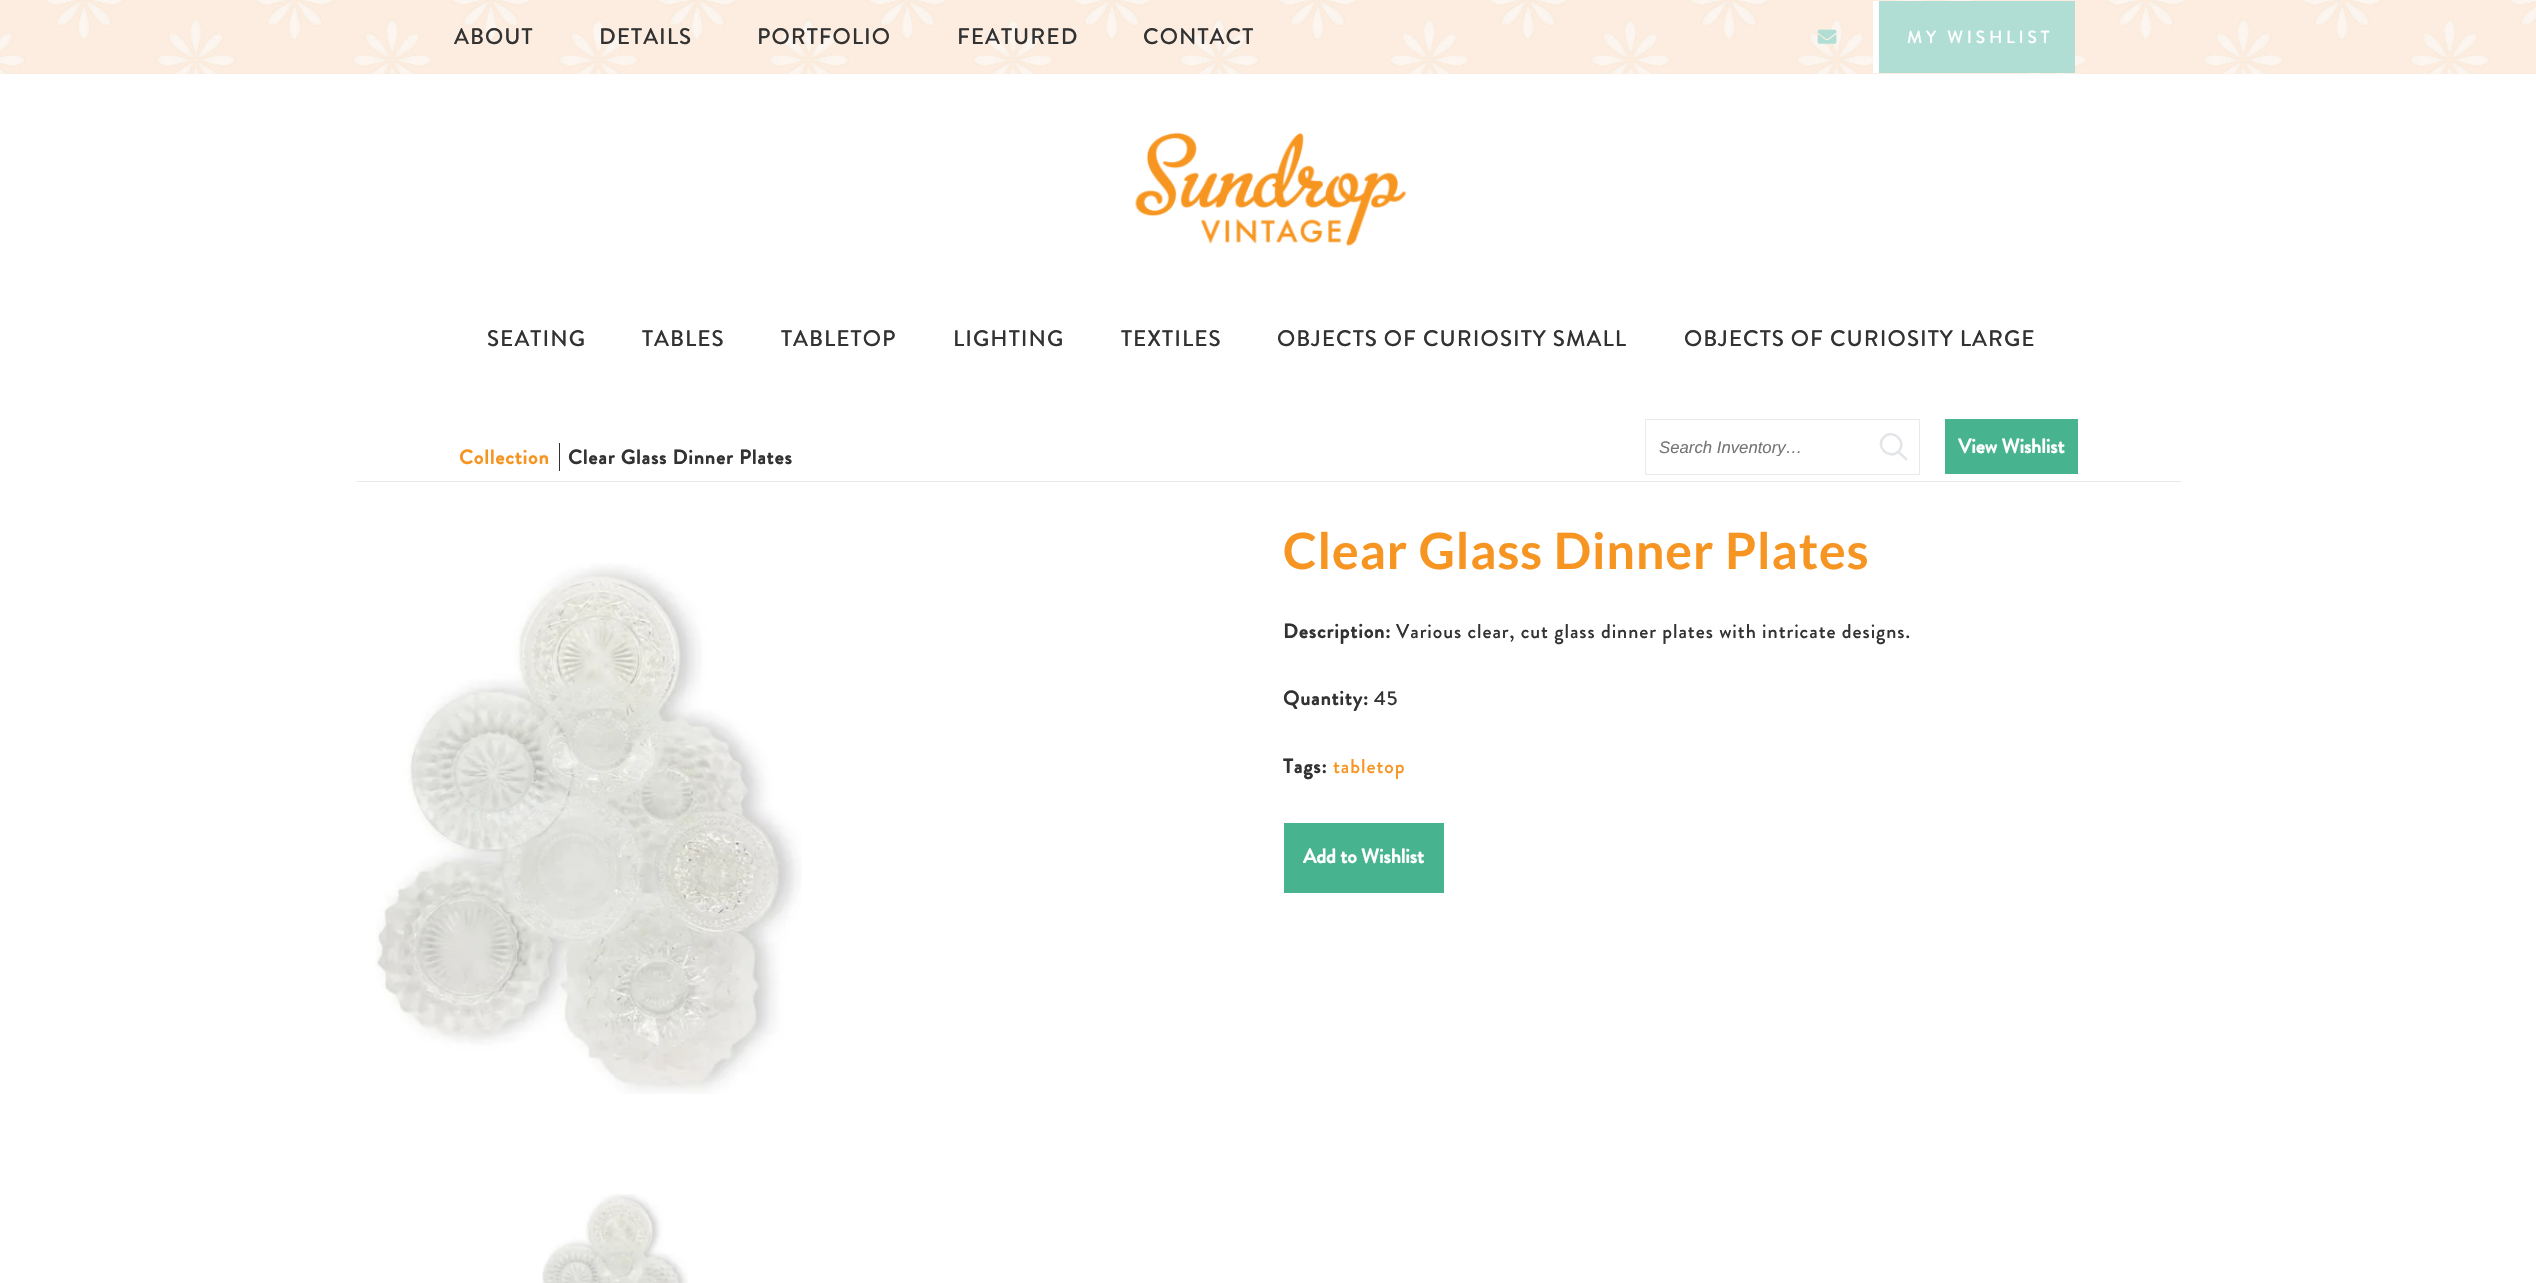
void draw(SkCanvas* canvas) {
	SkPaint fill;
	fill.setAntiAlias(true);
	auto makeFont = [&](const char* family, int weight, float size, bool italic = false) {
		SkFontStyle style(weight, SkFontStyle::kNormal_Width,
			italic ? SkFontStyle::kItalic_Slant : SkFontStyle::kUpright_Slant);
		SkFont result(fontMgr->matchFamilyStyle(family, style), size);
		result.setSubpixel(true);
		return result;
	};
	auto text = [&](const char* s, float x, float y, const SkFont& font) {
		canvas->drawString(s, x, y, font, fill);
	};
	auto spacedText = [&](const char* s, float x, float y, const SkFont& font, const SkPaint& ink, float letter, float word) {
		std::vector<SkGlyphID> glyphs(font.countText(s, strlen(s), SkTextEncoding::kUTF8));
		std::vector<float> xs(glyphs.size());
		font.textToGlyphs(s, strlen(s), SkTextEncoding::kUTF8, glyphs);
		font.getXPos(glyphs, xs, x);
		float extra = 0;
		for (size_t i = 0; i < glyphs.size(); i++) {
			xs[i] += extra;
			extra += letter + word * (glyphs[i] == font.unicharToGlyph(' '));
		}
		canvas->drawTextBlob(SkTextBlob::MakeFromPosHGlyphs(glyphs, xs, y, font), 0, 0, ink);
	};
	auto box = [&](float l, float t, float r, float b) {
		canvas->drawRect(SkRect::MakeLTRB(l, t, r, b), fill);
	};
	auto picture = [&](const char* path, float l, float t, float r, float b) {
		auto image = SkImages::DeferredFromEncodedData(SkData::MakeFromFileName(path));
		canvas->drawImageRect(image, SkRect::MakeLTRB(l, t, r, b), SkSamplingOptions());
	};
	canvas->clear(0xFFFFFFFF);
	fill.setColor(0xFFFCEDE0);
	box(0, 0, 2536, 74);
	picture("image0.png", 0, 0, 2536, 74);
	picture("image1.png", 1817, 29, 1837, 44);
	fill.setColor(0xFFB0DED4);
	box(1879, 1, 2075, 73);
	fill.setColor(0xFFFFFFFF);
	box(1873, 1, 1879, 73);
	picture("image2.png", 1135, 132, 1407, 247);
	fill.setColor(0xFFEAEAEA);
	box(356, 481, 2181, 482);
	fill.setColor(0xFF323232);
	box(559, 443, 560, 471);
	fill.setStyle(SkPaint::kStroke_Style);
	fill.setStrokeWidth(1);
	fill.setColor(0xFFEAEAEA);
	canvas->drawRect(SkRect::MakeLTRB(1645.5f, 419.5f, 1919.5f, 474.5f), fill);
	fill.setStrokeWidth(2.5f);
	fill.setColor(0xFFE3E5E9);
	canvas->drawPath(SkPathBuilder().moveTo(1884, 437).cubicTo(1893.5f, 428, 1907.5f, 442, 1898.5f, 451.5f).cubicTo(1889, 460.5f, 1874.5f, 446.5f, 1884, 437).close().detach(), fill);
	fill.setStrokeCap(SkPaint::kSquare_Cap);
	canvas->drawPath(SkPathBuilder().moveTo(1898.5f, 452).lineTo(1906, 459).detach(), fill);
	fill.setStyle(SkPaint::kFill_Style);
	fill.setColor(0xFF48B48F);
	box(1945, 419, 2078, 474);
	picture("image3.png", 375, 563, 802, 1094);
	picture("image4.png", 542, 1194, 688, 1283);
	box(1284, 823, 1444, 893);
	auto font1 = makeFont("Brandon Grotesque", 500, 22.5f);
	fill.setColor(0xFF323232);
	spacedText("ABOUT", 454, 44, font1, fill, 1.05f, 0);
	spacedText("DETAILS", 599, 44, font1, fill, 1.05f, 0);
	spacedText("PORTFOLIO", 757, 44, font1, fill, 1.05f, 0);
	spacedText("FEATURED", 957, 44, font1, fill, 1.05f, 0);
	spacedText("CONTACT", 1143, 44, font1, fill, 1.05f, 0);
	auto font2 = makeFont("Brandon Grotesque", 500, 17.5f);
	fill.setColor(0xFFFFFFFF);
	spacedText("MY WISHLIST", 1907, 43, font2, fill, 3.75f, 0);
	fill.setColor(0xFF323232);
	spacedText("SEATING", 487, 346, font1, fill, 1.05f, 0);
	spacedText("TABLES", 642, 346, font1, fill, 1.05f, 0);
	spacedText("TABLETOP", 781, 346, font1, fill, 1.05f, 0);
	spacedText("LIGHTING", 953, 346, font1, fill, 1.05f, 0);
	spacedText("TEXTILES", 1121, 346, font1, fill, 1.05f, 0);
	spacedText("OBJECTS OF CURIOSITY SMALL", 1277, 346, font1, fill, 1.05f, 0);
	spacedText("OBJECTS OF CURIOSITY LARGE", 1684, 346, font1, fill, 1.05f, 0);
	auto font3 = makeFont("Brandon Grotesque", 700, 20);
	fill.setColor(0xFFF79523);
	spacedText("Collection", 459, 464, font3, fill, 0.95f, 0);
	fill.setColor(0xFF323232);
	spacedText("Clear Glass Dinner Plates", 568, 464, font3, fill, 0.95f, 0);
	canvas->save();
	canvas->clipRect(SkRect::MakeLTRB(1659, 438, 1906, 456));
	auto font4 = makeFont("Liberation Sans", 400, 16.75f, true);
	fill.setColor(0xFF757575);
	text("Search Inventory…", 1659, 453, font4);
	canvas->restore();
	fill.setColor(0xFFFFFFFF);
	text("View Wishlist", 1958, 453, font3);
	auto font5 = makeFont("Lato", 700, 50);
	fill.setColor(0xFFF79523);
	spacedText("Clear Glass Dinner Plates", 1283, 569, font5, fill, 0.95f, 0);
	fill.setColor(0xFF323232);
	spacedText("Description:", 1283, 638, font3, fill, 0.95f, 0);
	auto font6 = makeFont("Brandon Grotesque", 500, 20);
	spacedText("Various clear, cut glass dinner plates with intricate designs.", 1396, 638, font6, fill, 0.95f, 0);
	spacedText("Quantity:", 1283, 705, font3, fill, 0.95f, 0);
	spacedText("45", 1374, 705, font6, fill, 0.95f, 0);
	spacedText("Tags:", 1283, 773, font3, fill, 0.95f, 0);
	fill.setColor(0xFFF79523);
	spacedText("tabletop", 1333, 773, font6, fill, 0.95f, 0);
	fill.setColor(0xFFFFFFFF);
	text("Add to Wishlist", 1303, 863, font3);
}
